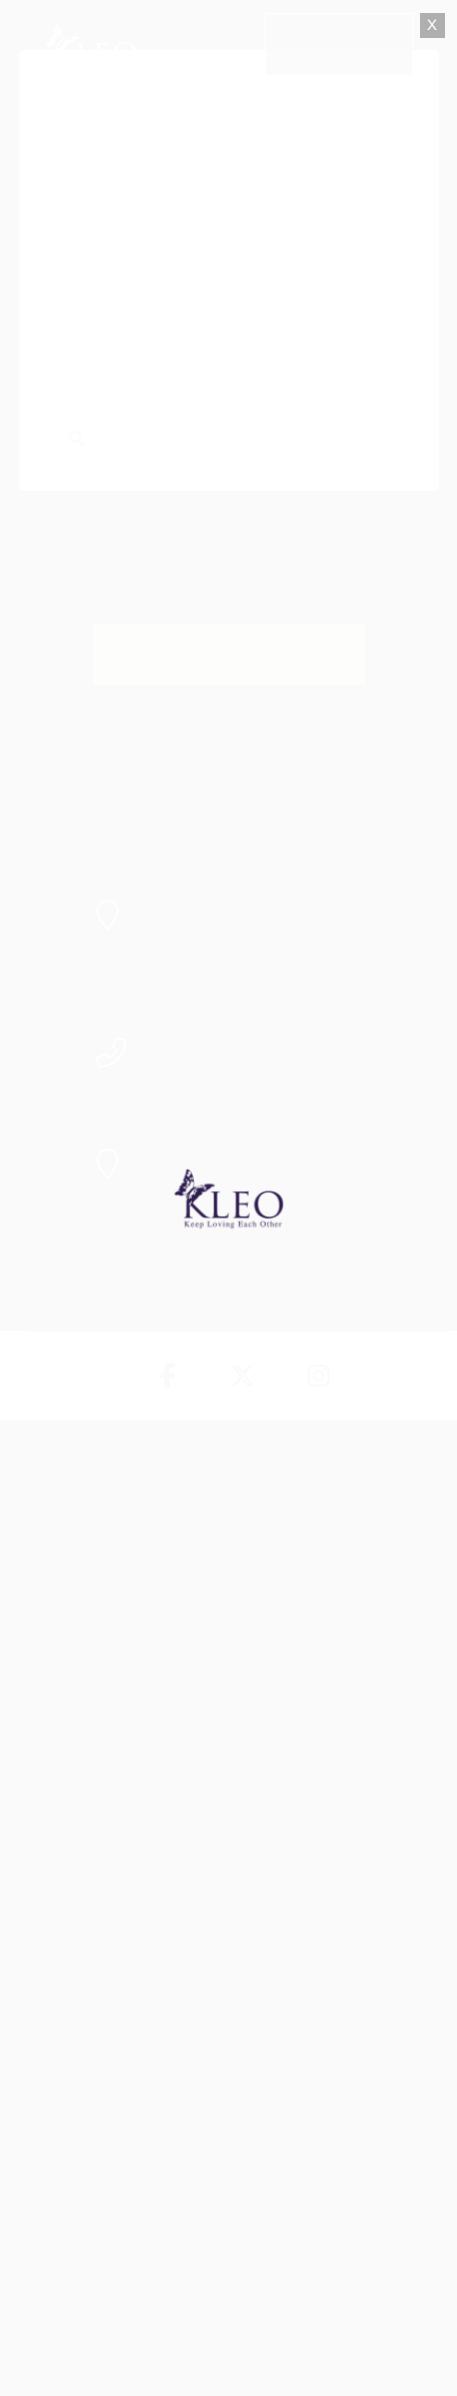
void draw(SkCanvas* canvas) {
	SkPaint fill;
	fill.setAntiAlias(true);
	auto makeFont = [&](const char* family, int weight, float size, bool italic = false) {
		SkFontStyle style(weight, SkFontStyle::kNormal_Width,
			italic ? SkFontStyle::kItalic_Slant : SkFontStyle::kUpright_Slant);
		SkFont result(fontMgr->matchFamilyStyle(family, style), size);
		result.setSubpixel(true);
		return result;
	};
	auto text = [&](const char* s, float x, float y, const SkFont& font) {
		canvas->drawString(s, x, y, font, fill);
	};
	auto box = [&](float l, float t, float r, float b) {
		canvas->drawRect(SkRect::MakeLTRB(l, t, r, b), fill);
	};
	auto roundBox = [&](float l, float t, float r, float b, float radius) {
		canvas->drawRoundRect(SkRect::MakeLTRB(l, t, r, b), radius, radius, fill);
	};
	auto picture = [&](const char* path, float l, float t, float r, float b) {
		auto image = SkImages::DeferredFromEncodedData(SkData::MakeFromFileName(path));
		canvas->drawImageRect(image, SkRect::MakeLTRB(l, t, r, b), SkSamplingOptions());
	};
	canvas->clear(0xFFFBFAFB);
	fill.setColor(0xFFFFFFFF);
	roundBox(19, 50, 439, 491, 5);
	picture("image0.png", 45, 24, 138, 66);
	fill.setColor(0xFFFCFBFC);
	box(266, 50, 412, 75);
	fill.setStyle(SkPaint::kStroke_Style);
	fill.setStrokeWidth(1);
	fill.setColor(0xFFFFFFFF);
	canvas->drawRect(SkRect::MakeLTRB(265.5f, 13.5f, 412.5f, 75.5f), fill);
	picture("image1.png", 68, 430, 84, 446);
	fill.setStyle(SkPaint::kFill_Style);
	fill.setColor(0xFFFDFDFC);
	box(93, 624, 365, 685);
	picture("image2.png", 96, 900, 119, 930);
	picture("image3.png", 96, 1037, 127, 1068);
	picture("image4.png", 96, 1148, 119, 1179);
	fill.setColor(0xFFFFFFFF);
	box(0, 1331, 457, 1420);
	fill.setColor(0xFFFBFBFB);
	box(28, 1331, 446, 1332);
	picture("image5.png", 160, 1363, 175, 1389);
	picture("image6.png", 231, 1365, 254, 1386);
	picture("image7.png", 307, 1364, 330, 1387);
	fill.setColor(0xFFB0AFB0);
	box(420, 13, 445, 38);
	picture("image8.png", 173, 1168, 284, 1230);
	auto font1 = makeFont("Liberation Sans", 400, 15);
	fill.setColor(0xFFFCFCFD);
	text("X", 427, 30, font1);
}
